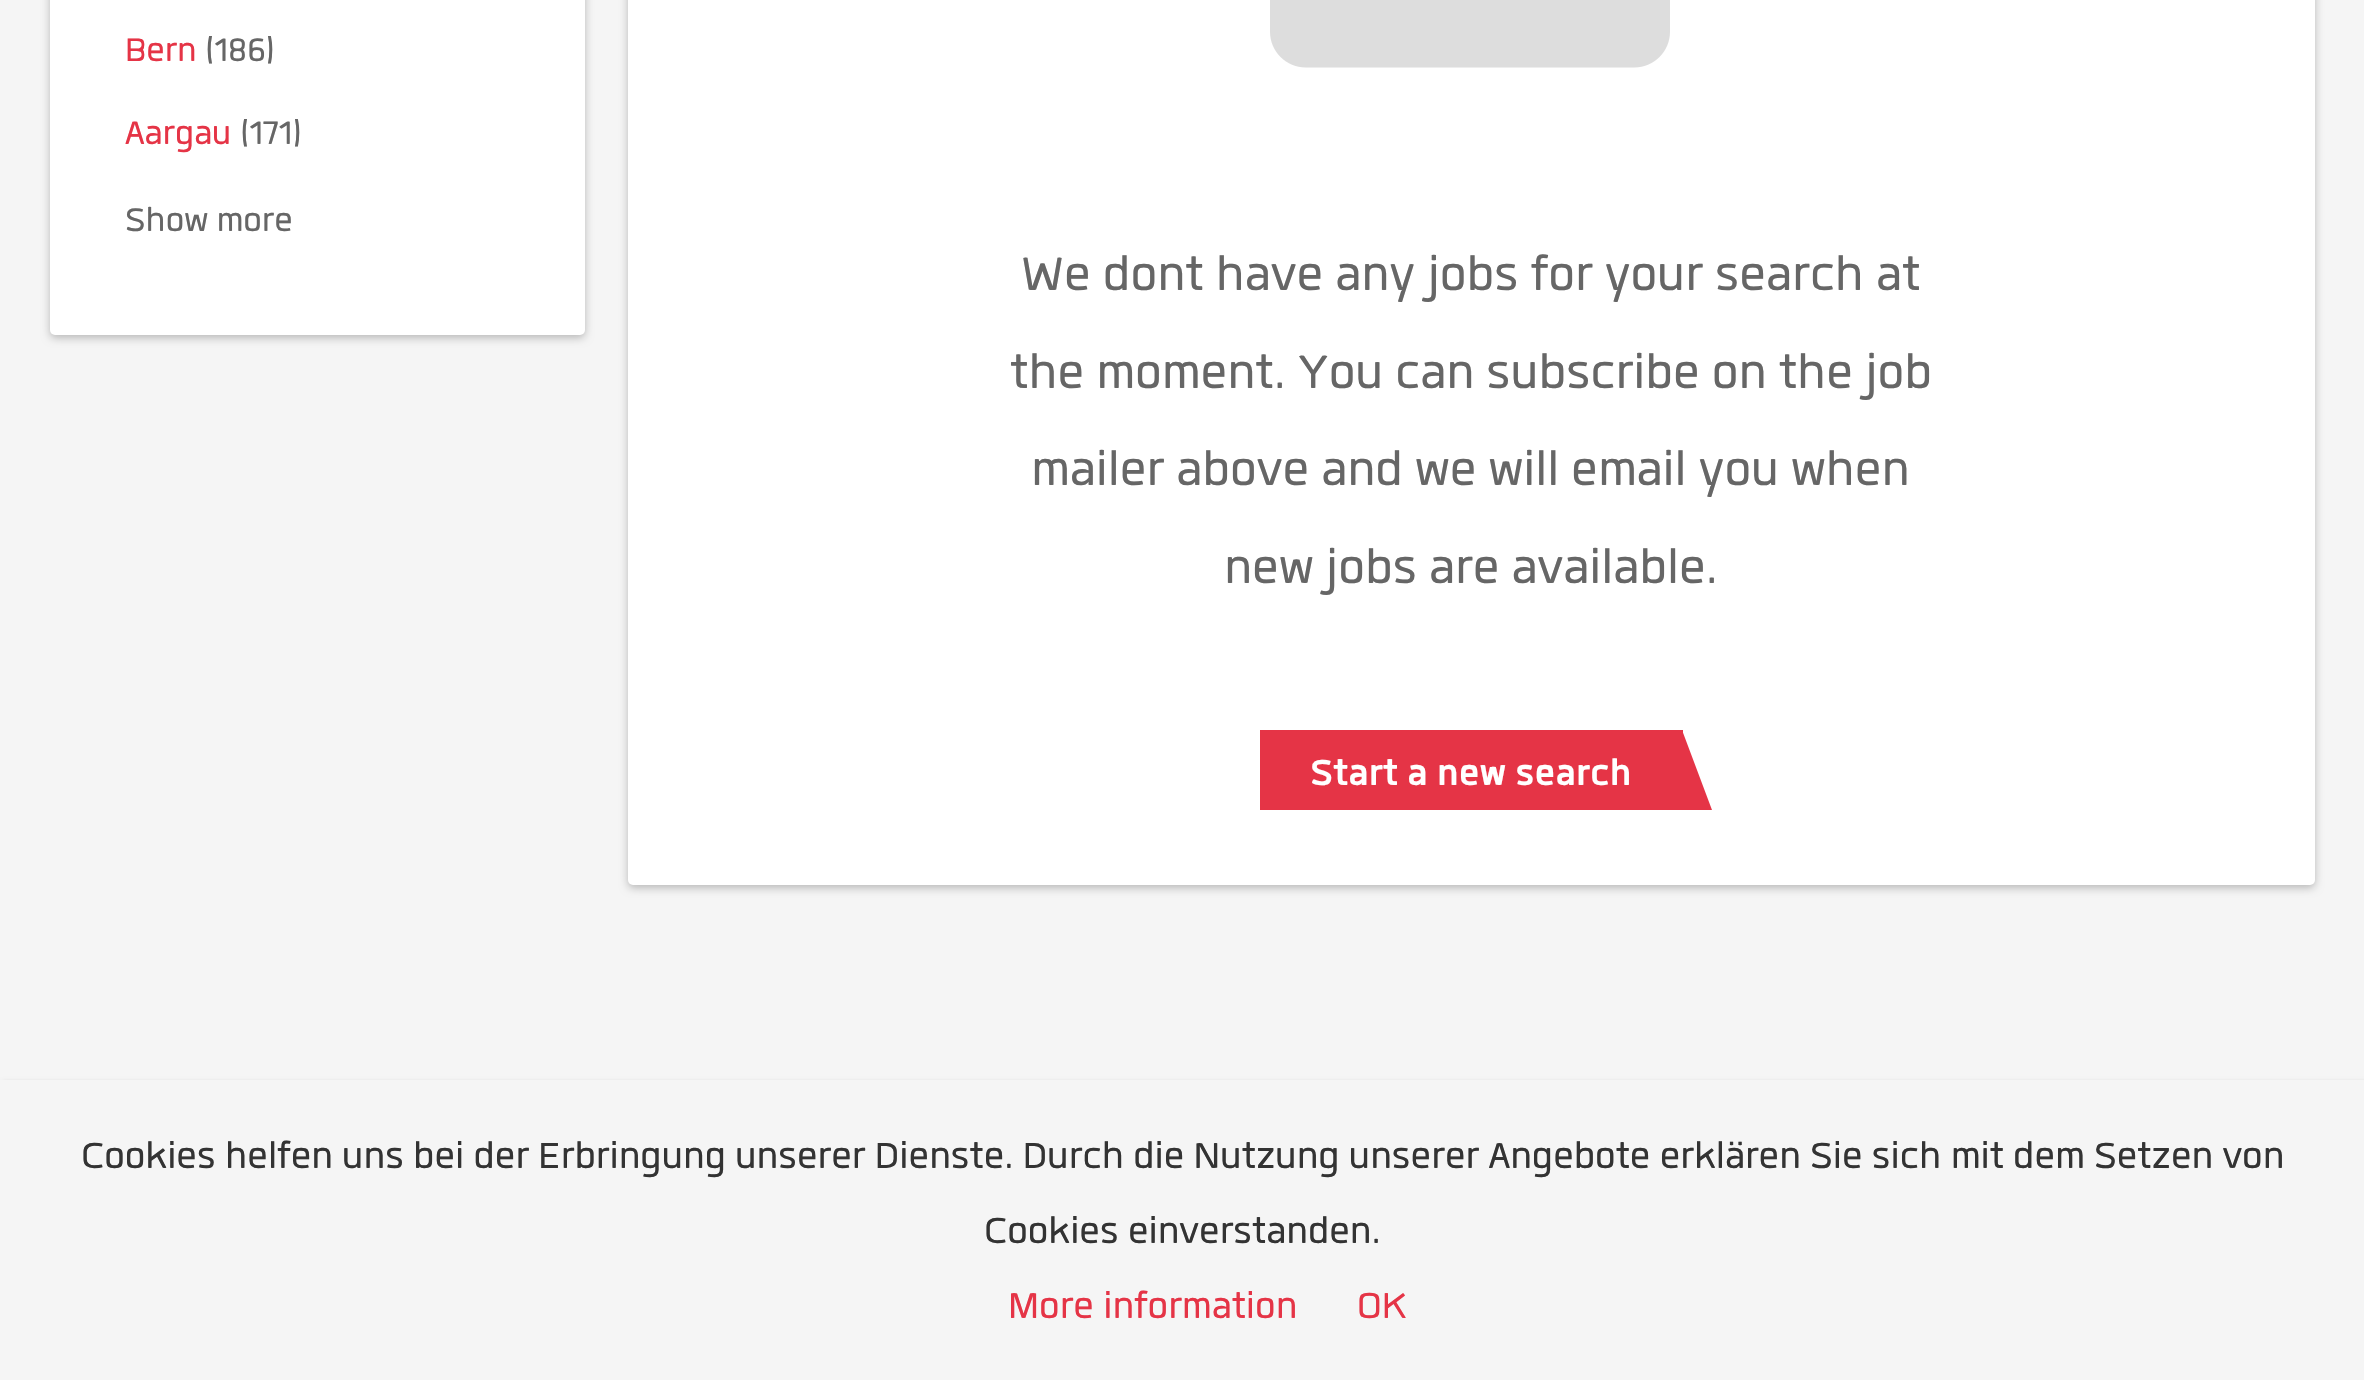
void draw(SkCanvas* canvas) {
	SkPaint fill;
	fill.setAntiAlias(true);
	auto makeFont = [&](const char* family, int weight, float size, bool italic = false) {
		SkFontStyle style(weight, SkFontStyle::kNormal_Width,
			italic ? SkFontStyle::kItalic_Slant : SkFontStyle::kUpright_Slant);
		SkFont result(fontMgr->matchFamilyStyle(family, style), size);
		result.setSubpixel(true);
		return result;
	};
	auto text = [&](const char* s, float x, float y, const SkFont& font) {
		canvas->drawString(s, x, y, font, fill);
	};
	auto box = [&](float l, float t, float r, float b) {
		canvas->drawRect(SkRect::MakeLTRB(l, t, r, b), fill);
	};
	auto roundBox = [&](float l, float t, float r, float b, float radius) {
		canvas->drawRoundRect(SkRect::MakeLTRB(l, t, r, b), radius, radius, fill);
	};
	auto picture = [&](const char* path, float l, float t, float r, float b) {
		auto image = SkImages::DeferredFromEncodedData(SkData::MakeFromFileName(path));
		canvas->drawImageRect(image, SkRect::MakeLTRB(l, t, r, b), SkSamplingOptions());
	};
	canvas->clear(0xFFF5F5F5);
	fill.setColor(0x40000000);
	fill.setMaskFilter(SkMaskFilter::MakeBlur(kNormal_SkBlurStyle, 4));
	canvas->drawRoundRect(SkRect::MakeLTRB(50, -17, 585, 338), 5, 5, fill);
	fill.setMaskFilter(nullptr);
	fill.setColor(0xFFFFFFFF);
	roundBox(50, -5, 585, 335, 5);
	fill.setColor(0x40000000);
	fill.setMaskFilter(SkMaskFilter::MakeBlur(kNormal_SkBlurStyle, 4));
	canvas->drawRoundRect(SkRect::MakeLTRB(628, -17, 2315, 888), 5, 5, fill);
	fill.setMaskFilter(nullptr);
	fill.setColor(0xFFFFFFFF);
	roundBox(628, -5, 2315, 885, 5);
	picture("image0.png", 1270, 0, 1670, 68);
	fill.setColor(0xFFE53446);
	box(1260, 730, 1683, 810);
	canvas->drawPath(SkPathBuilder().moveTo(1712, 810).lineTo(1658, 810).lineTo(1682, 730).close().detach(), fill);
	fill.setColor(0xFFA8A8A8);
	fill.setMaskFilter(SkMaskFilter::MakeBlur(kNormal_SkBlurStyle, 2.5f));
	canvas->drawRect(SkRect::MakeLTRB(3, 1083, 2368, 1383), fill);
	fill.setMaskFilter(nullptr);
	fill.setColor(0xFFF5F5F5);
	box(0, 1080, 2364, 1380);
	auto font1 = makeFont("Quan", 400, 45);
	fill.setColor(0xFFE53446);
	text("Bern", 125, 61, font1);
	fill.setColor(0xFF666666);
	text("(186)", 205, 61, font1);
	fill.setColor(0xFFE53446);
	text("Aargau", 125, 144, font1);
	fill.setColor(0xFF666666);
	text("(171)", 240, 144, font1);
	text("Show more", 125, 231, font1);
	auto font2 = makeFont("Quan", 400, 65);
	text("We dont have any jobs for your search at", 1021, 290, font2);
	text("the moment. You can subscribe on the job", 1010, 388, font2);
	text("mailer above and we will email you when", 1031, 485, font2);
	text("new jobs are available.", 1224, 583, font2);
	auto font3 = makeFont("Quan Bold", 700, 50);
	fill.setColor(0xFFFFFFFF);
	text("Start a new search", 1310, 785, font3);
	auto font4 = makeFont("Quan", 400, 50);
	fill.setColor(0xFF333333);
	text("Cookies helfen uns bei der Erbringung unserer Dienste. Durch die Nutzung unserer Angebote erklären Sie sich mit dem Setzen von", 81, 1168, font4);
	text("Cookies einverstanden.", 984, 1243, font4);
	fill.setColor(0xFFE53446);
	text("More information", 1008, 1318, font4);
	text("OK", 1357, 1318, font4);
}
